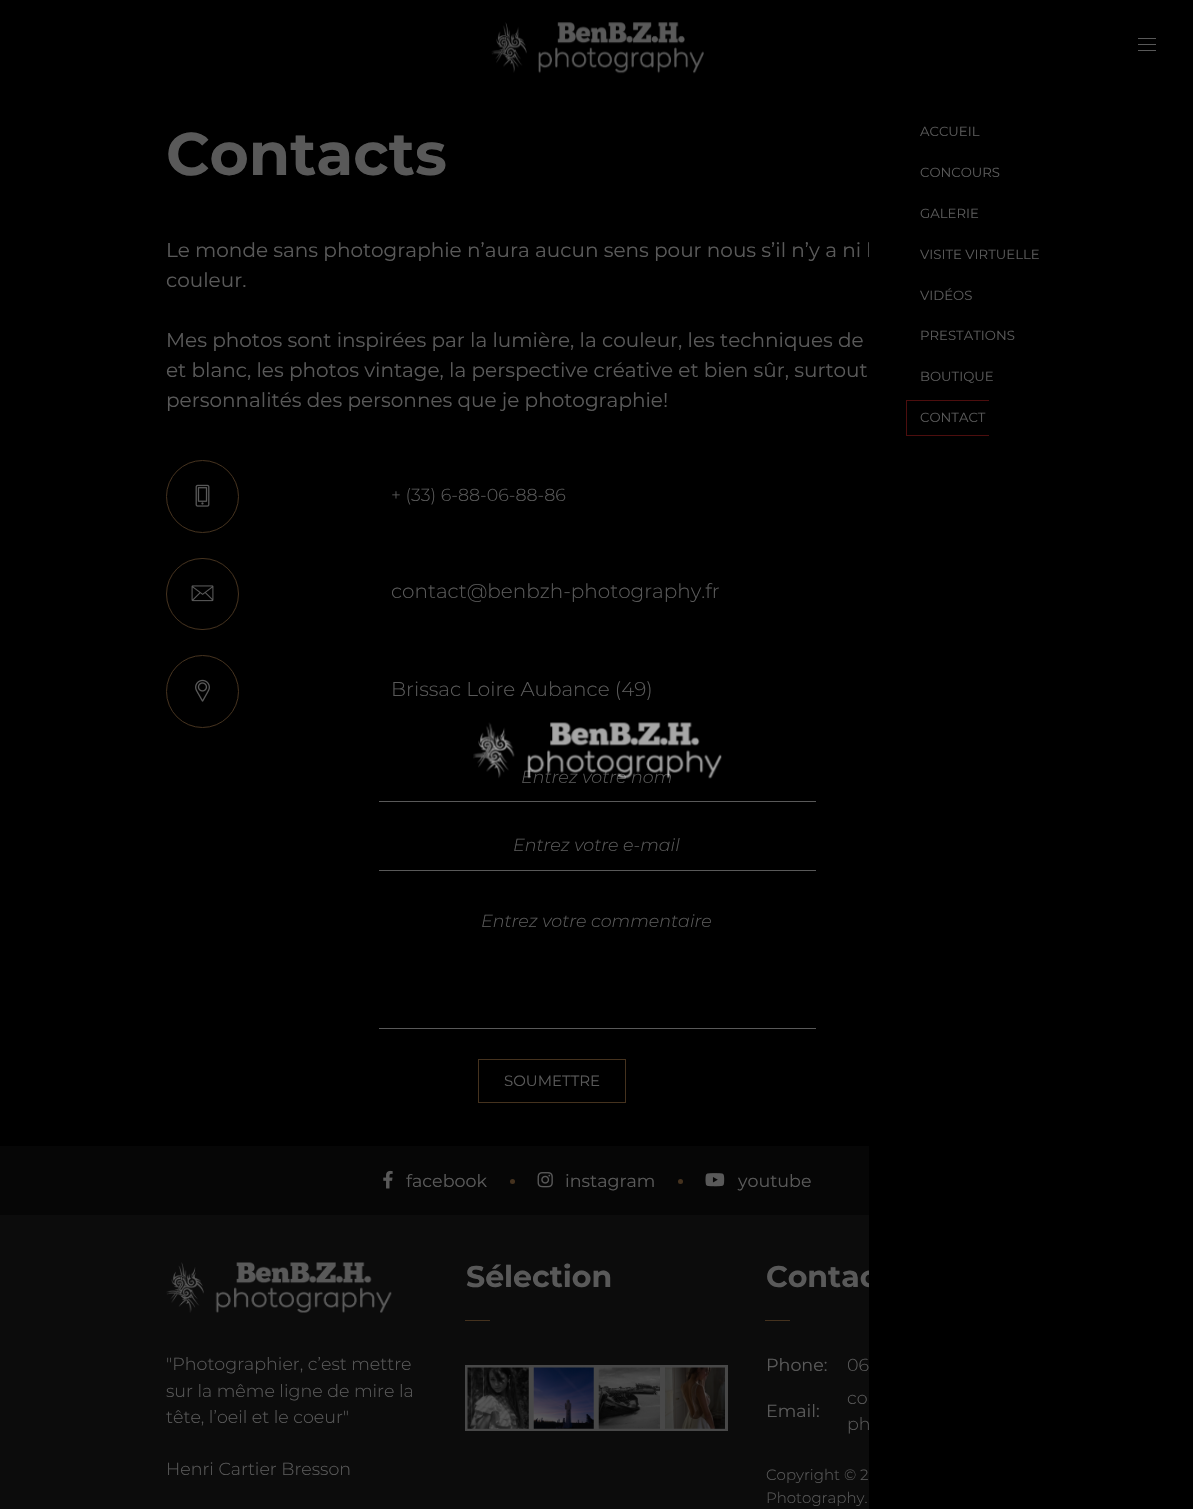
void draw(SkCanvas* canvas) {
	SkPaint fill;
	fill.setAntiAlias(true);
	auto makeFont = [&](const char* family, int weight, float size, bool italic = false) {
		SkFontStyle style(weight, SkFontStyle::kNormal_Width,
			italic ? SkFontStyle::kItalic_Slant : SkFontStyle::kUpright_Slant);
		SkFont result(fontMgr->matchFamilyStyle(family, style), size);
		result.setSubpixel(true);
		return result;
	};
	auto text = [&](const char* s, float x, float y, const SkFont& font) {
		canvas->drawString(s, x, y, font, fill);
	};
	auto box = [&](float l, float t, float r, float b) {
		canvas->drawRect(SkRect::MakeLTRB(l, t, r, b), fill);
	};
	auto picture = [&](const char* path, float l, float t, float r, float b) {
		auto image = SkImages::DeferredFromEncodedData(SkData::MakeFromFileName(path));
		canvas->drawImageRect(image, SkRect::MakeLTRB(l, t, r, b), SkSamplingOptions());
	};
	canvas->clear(0xFF000000);
	fill.setStyle(SkPaint::kStroke_Style);
	fill.setStrokeWidth(1);
	fill.setColor(0xFF45321E);
	canvas->drawCircle(202.5f, 496.5f, 36, fill);
	picture("image0.png", 195, 484, 210, 507);
	canvas->drawRoundRect(SkRect::MakeLTRB(166.5f, 558.5f, 238.5f, 629.5f), 35.5f, 35.5f, fill);
	picture("image1.png", 191, 585, 214, 602);
	canvas->drawCircle(202.5f, 691.5f, 36, fill);
	picture("image2.png", 195, 679, 210, 702);
	fill.setStyle(SkPaint::kFill_Style);
	fill.setColor(0xFF595959);
	box(379, 801, 816, 802);
	box(379, 870, 816, 871);
	box(379, 1028, 816, 1029);
	fill.setStyle(SkPaint::kStroke_Style);
	fill.setColor(0xFF45321E);
	canvas->drawRect(SkRect::MakeLTRB(478.5f, 1059.5f, 625.5f, 1102.5f), fill);
	picture("image3.png", 491, 22, 704, 74);
	fill.setStyle(SkPaint::kFill_Style);
	fill.setColor(0xFF595959);
	box(1138, 38, 1156, 39);
	box(1138, 44, 1156, 45);
	box(1138, 50, 1156, 51);
	fill.setColor(0xFF4D0E0E);
	box(906, 400, 989, 401);
	box(906, 435, 989, 436);
	box(906, 400, 907, 436);
	fill.setColor(0xFF060606);
	box(0, 1146, 869, 1215);
	picture("image5.png", 383, 1170, 393, 1189);
	fill.setColor(0xFF45321E);
	canvas->drawCircle(512.5f, 1181.5f, 2.5f, fill);
	picture("image6.png", 537, 1172, 553, 1188);
	canvas->drawCircle(680.5f, 1181.5f, 2.5f, fill);
	picture("image7.png", 705, 1173, 725, 1187);
	fill.setColor(0xFF0C0C0C);
	box(0, 1215, 869, 1509);
	picture("image8.png", 166, 1262, 392, 1313);
	fill.setColor(0xFF45321E);
	box(465, 1320, 490, 1321);
	fill.setStyle(SkPaint::kStroke_Style);
	fill.setStrokeWidth(3);
	fill.setColor(0xFF484848);
	canvas->drawRect(SkRect::MakeLTRB(466.5f, 1366.5f, 529.5f, 1429.5f), fill);
	picture("image9.png", 467, 1367, 529, 1429);
	canvas->drawRect(SkRect::MakeLTRB(532.5f, 1366.5f, 594.5f, 1429.5f), fill);
	picture("image10.png", 533, 1367, 594, 1429);
	canvas->drawRect(SkRect::MakeLTRB(597.5f, 1366.5f, 661.5f, 1429.5f), fill);
	picture("image11.png", 598, 1367, 660, 1429);
	canvas->drawRect(SkRect::MakeLTRB(664.5f, 1366.5f, 726.5f, 1429.5f), fill);
	picture("image12.png", 665, 1367, 725, 1429);
	fill.setStyle(SkPaint::kFill_Style);
	fill.setColor(0xFF45321E);
	box(765, 1320, 790, 1321);
	auto font1 = makeFont("Montserrat", 700, 60);
	fill.setColor(0xFF595959);
	text("Contacts", 166, 175, font1);
	auto font2 = makeFont("Montserrat", 400, 20);
	text("Le monde sans photographie n’aura aucun sens pour nous s’il n’y a ni l", 166, 257, font2);
	text("couleur.", 166, 287, font2);
	text("Mes photos sont inspirées par la lumière, la couleur, les techniques de", 166, 347, font2);
	text("et blanc, les photos vintage, la perspective créative et bien sûr, surtout", 166, 377, font2);
	text("personnalités des personnes que je photographie!", 166, 407, font2);
	auto font3 = makeFont("Montserrat", 300, 17.5f);
	text("+ (33) 6-88-06-88-86", 391, 501, font3);
	auto font4 = makeFont("Montserrat", 300, 20);
	text("contact@benbzh-photography.fr", 391, 598, font4);
	text("Brissac Loire Aubance (49)", 391, 696, font4);
	auto font5 = makeFont("Montserrat", 300, 17.5f, true);
	text("Entrez votre nom", 521, 783, font5);
	text("Entrez votre e-mail", 513, 851, font5);
	text("Entrez votre commentaire", 481, 927, font5);
	auto font6 = makeFont("Montserrat", 400, 15);
	text("SOUMETTRE", 504, 1086, font6);
	auto font7 = makeFont("Montserrat", 400, 13.25f);
	text("ACCUEIL", 920, 136, font7);
	text("CONCOURS", 920, 177, font7);
	text("GALERIE", 920, 218, font7);
	text("VISITE VIRTUELLE", 920, 259, font7);
	text("VIDÉOS", 920, 300, font7);
	text("PRESTATIONS", 920, 340, font7);
	text("BOUTIQUE", 920, 381, font7);
	text("CONTACT", 920, 422, font7);
	picture("image4.png", 473, 722, 722, 779);
	auto font8 = makeFont("Montserrat", 400, 17.5f);
	text("facebook", 406, 1187, font8);
	text("instagram", 565, 1187, font8);
	text("youtube", 738, 1187, font8);
	text("\"Photographier, c’est mettre", 166, 1370, font3);
	text("sur la même ligne de mire la", 166, 1397, font3);
	text("tête, l’oeil et le coeur\"", 166, 1423, font3);
	text("Henri Cartier Bresson", 166, 1475, font3);
	auto font9 = makeFont("Montserrat", 700, 30);
	text("Sélection", 466, 1287, font9);
	text("Contac", 766, 1287, font9);
	fill.setColor(0xFF000000);
	box(869, 242, 877, 1288);
	fill.setColor(0xFF595959);
	text("Phone:", 766, 1371, font8);
	text("06", 847, 1371, font3);
	text("co", 847, 1404, font3);
	text("Email:", 766, 1417, font8);
	text("ph", 847, 1430, font3);
	auto font10 = makeFont("Montserrat", 300, 15);
	text("Copyright © 2", 766, 1480, font10);
	text("Photography.", 766, 1503, font10);
}
